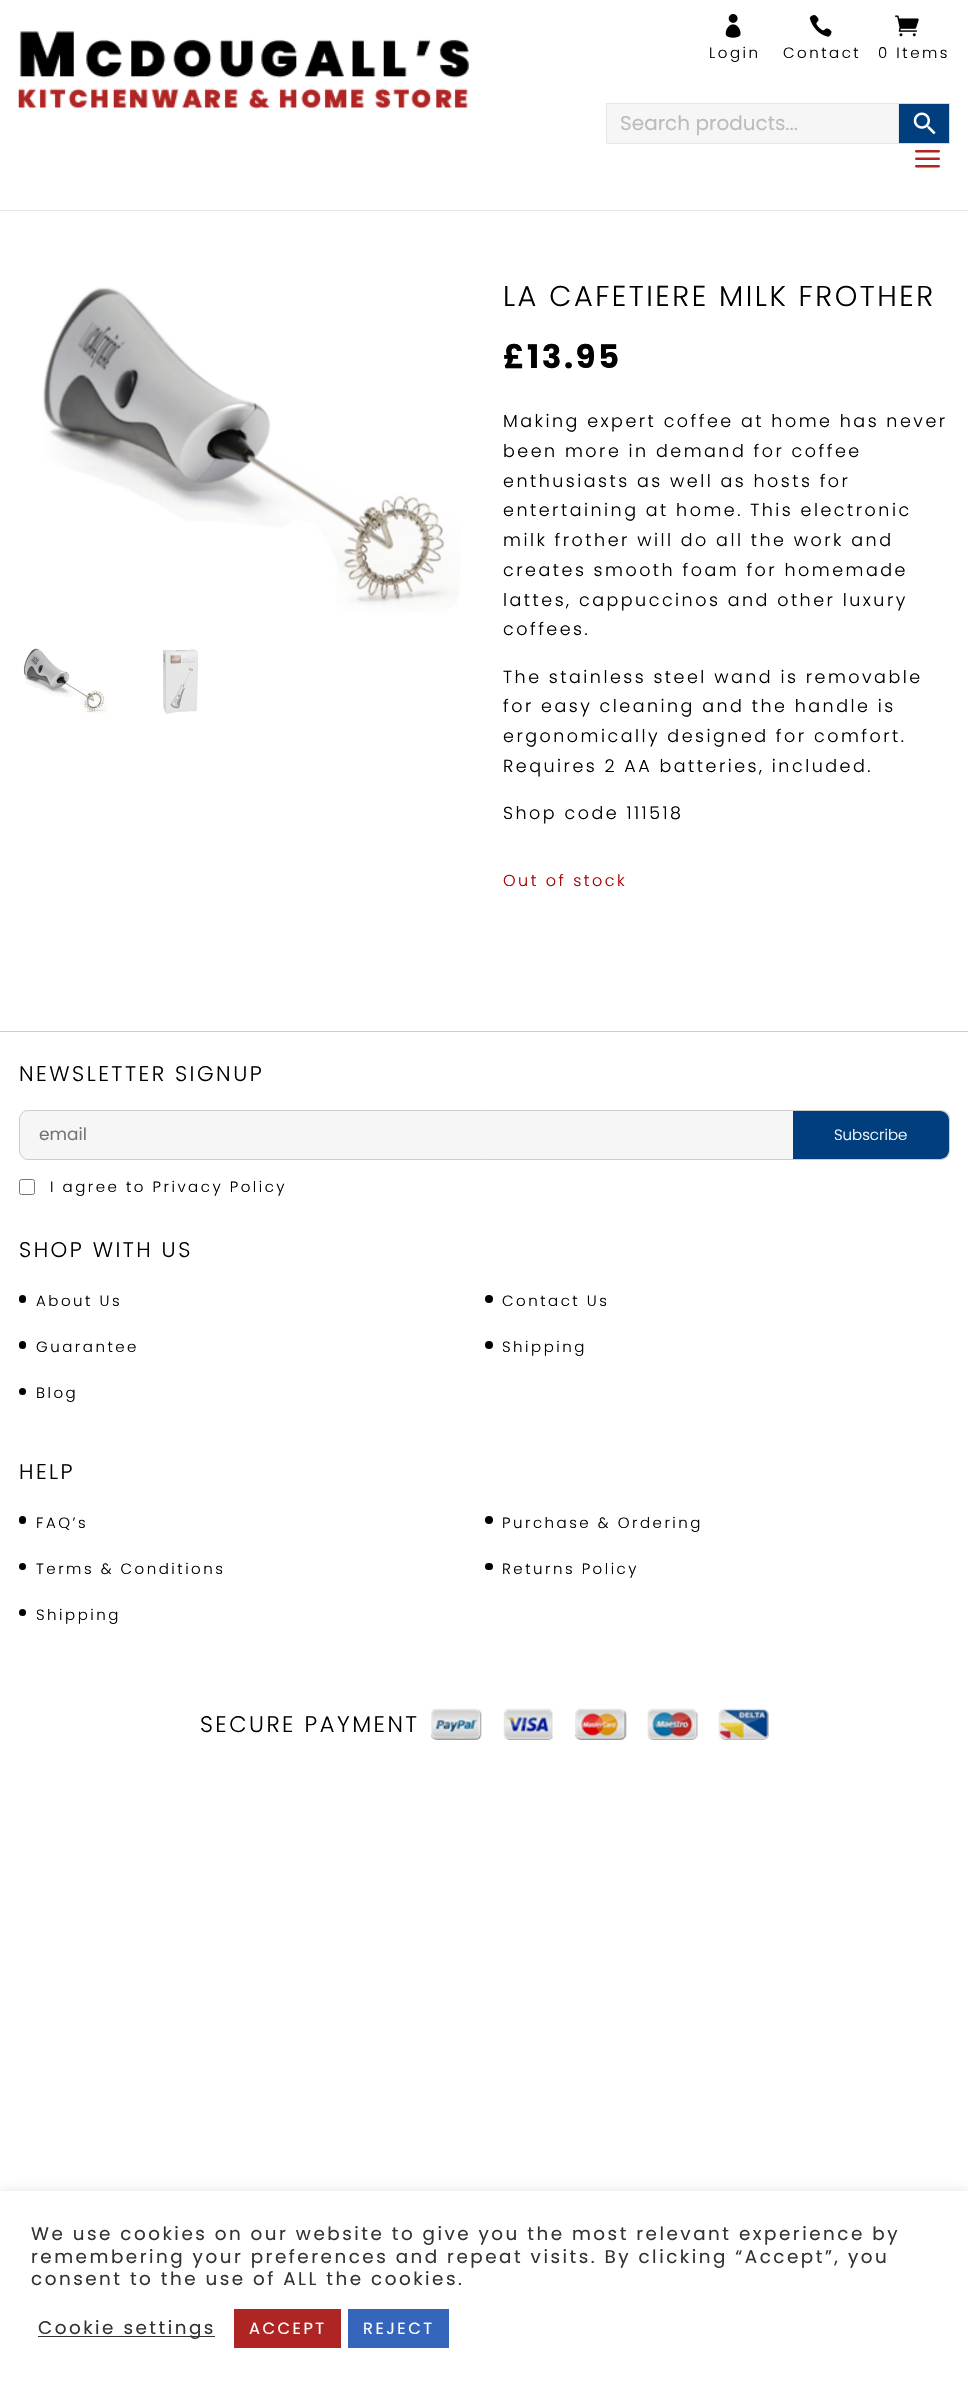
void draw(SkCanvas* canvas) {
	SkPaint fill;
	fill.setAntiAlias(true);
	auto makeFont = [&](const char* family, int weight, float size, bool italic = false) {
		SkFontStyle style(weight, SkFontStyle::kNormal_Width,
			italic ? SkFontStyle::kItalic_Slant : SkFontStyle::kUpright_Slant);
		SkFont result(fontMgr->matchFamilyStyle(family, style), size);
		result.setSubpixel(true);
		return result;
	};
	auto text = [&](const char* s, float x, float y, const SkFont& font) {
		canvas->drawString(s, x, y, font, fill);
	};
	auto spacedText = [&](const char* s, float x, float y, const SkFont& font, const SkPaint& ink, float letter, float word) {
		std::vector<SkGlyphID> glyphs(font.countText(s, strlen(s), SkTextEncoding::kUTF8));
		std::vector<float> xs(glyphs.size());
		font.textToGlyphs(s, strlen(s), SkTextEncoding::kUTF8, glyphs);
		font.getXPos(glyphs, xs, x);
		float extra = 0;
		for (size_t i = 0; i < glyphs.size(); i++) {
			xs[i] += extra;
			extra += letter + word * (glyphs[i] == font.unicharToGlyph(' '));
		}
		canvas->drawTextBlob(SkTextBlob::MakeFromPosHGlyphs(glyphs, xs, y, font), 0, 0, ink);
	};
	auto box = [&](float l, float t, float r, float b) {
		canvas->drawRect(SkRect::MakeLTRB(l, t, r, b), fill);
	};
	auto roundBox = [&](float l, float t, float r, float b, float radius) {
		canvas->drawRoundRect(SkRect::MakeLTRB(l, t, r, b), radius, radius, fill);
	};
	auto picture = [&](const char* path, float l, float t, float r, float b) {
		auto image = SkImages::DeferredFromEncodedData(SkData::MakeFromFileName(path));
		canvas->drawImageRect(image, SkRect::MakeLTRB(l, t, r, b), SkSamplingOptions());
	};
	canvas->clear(0xFFFFFFFF);
	fill.setColor(0xFFE6E6E6);
	canvas->drawPath(SkPathBuilder().moveTo(0, 210).lineTo(0, 211).lineTo(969, 211).lineTo(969, 1).lineTo(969, 210).close().detach(), fill);
	picture("image0.png", 18, 31, 469, 109);
	picture("image1.png", 725, 14, 741, 38);
	picture("image2.png", 809, 15, 832, 37);
	picture("image3.png", 895, 15, 919, 37);
	fill.setColor(0xFF003E7E);
	canvas->drawRect(SkRect::MakeLTRB(898.5f, 103.5f, 949.5f, 143.5f), fill);
	fill.setStyle(SkPaint::kStroke_Style);
	fill.setStrokeWidth(1);
	fill.setColor(0xFFD8D8D8);
	canvas->drawRect(SkRect::MakeLTRB(898.5f, 103.5f, 949.5f, 143.5f), fill);
	fill.setStyle(SkPaint::kFill_Style);
	fill.setColor(0xFFF6F6F6);
	canvas->drawRect(SkRect::MakeLTRB(606.5f, 103.5f, 898.5f, 143.5f), fill);
	fill.setStyle(SkPaint::kStroke_Style);
	fill.setColor(0xFFE6E6E6);
	canvas->drawRect(SkRect::MakeLTRB(606.5f, 103.5f, 898.5f, 143.5f), fill);
	picture("image4.png", 913, 112, 936, 135);
	picture("image5.png", 915, 150, 940, 168);
	picture("image6.png", 42, 287, 461, 613);
	picture("image7.png", 23, 648, 108, 714);
	picture("image8.png", 163, 649, 198, 714);
	fill.setStyle(SkPaint::kFill_Style);
	fill.setColor(0xFFCCCCCC);
	box(0, 1031, 968, 1032);
	fill.setColor(0xFFF6F6F6);
	canvas->drawRoundRect(SkRect::MakeLTRB(19.5f, 1110.5f, 949.5f, 1159.5f), 8.5f, 8.5f, fill);
	fill.setStyle(SkPaint::kStroke_Style);
	fill.setColor(0xFFCCCCCC);
	canvas->drawRoundRect(SkRect::MakeLTRB(19.5f, 1110.5f, 949.5f, 1159.5f), 8.5f, 8.5f, fill);
	fill.setStyle(SkPaint::kFill_Style);
	fill.setColor(0xFF003E7E);
	canvas->drawPath(SkPathBuilder().moveTo(793, 1111).lineTo(940, 1111).cubicTo(945, 1111, 949, 1115, 949, 1120).lineTo(949, 1150).cubicTo(949, 1155, 945, 1159, 940, 1159).lineTo(793, 1159).close().detach(), fill);
	fill.setStyle(SkPaint::kStroke_Style);
	fill.setColor(0xFF767676);
	canvas->drawRoundRect(SkRect::MakeLTRB(19.5f, 1179.5f, 34.5f, 1194.5f), 2, 2, fill);
	fill.setStyle(SkPaint::kFill_Style);
	fill.setColor(0xFF000000);
	roundBox(19, 1295, 26, 1303, 3.5f);
	canvas->drawCircle(489, 1299, 4, fill);
	roundBox(19, 1341, 26, 1349, 3.5f);
	canvas->drawCircle(489, 1345, 4, fill);
	canvas->drawCircle(22.5f, 1391.5f, 3.5f, fill);
	roundBox(19, 1516, 26, 1524, 3.5f);
	canvas->drawCircle(489, 1520, 4, fill);
	canvas->drawCircle(22.5f, 1566.5f, 3.5f, fill);
	roundBox(485, 1563, 493, 1570, 3.5f);
	canvas->drawCircle(22.5f, 1612.5f, 3.5f, fill);
	picture("image9.png", 431, 1708, 769, 1740);
	fill.setColor(0x4DACABAB);
	fill.setMaskFilter(SkMaskFilter::MakeBlur(kNormal_SkBlurStyle, 6));
	canvas->drawRect(SkRect::MakeLTRB(0, 2190, 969, 2384), fill);
	fill.setMaskFilter(nullptr);
	fill.setColor(0xFFFFFFFF);
	box(0, 2191, 968, 2385);
	fill.setColor(0xFF333333);
	box(38, 2336, 215, 2337);
	fill.setColor(0xFFAF2524);
	box(234, 2309, 341, 2348);
	fill.setColor(0xFF3566BB);
	box(348, 2309, 449, 2348);
	auto font1 = makeFont("Poppins", 300, 15);
	fill.setColor(0xFF000000);
	spacedText("Login", 709, 58, font1, fill, 2.5f, 0);
	spacedText("Contact", 783, 58, font1, fill, 2.5f, 0);
	spacedText("0 Items", 878, 58, font1, fill, 2.5f, 0);
	auto font2 = makeFont("Poppins", 400, 20);
	fill.setColor(0xFFBCBCBC);
	text("Search products...", 620, 130, font2);
	auto font3 = makeFont("Poppins", 300, 28.75f);
	fill.setColor(0xFF000000);
	spacedText("LA CAFETIERE MILK FROTHER", 503, 306, font3, fill, 2.5f, 0);
	auto font4 = makeFont("Poppins", 700, 32.5f);
	spacedText("£13.95", 503, 368, font4, fill, 2.5f, 0);
	auto font5 = makeFont("Poppins", 300, 17.5f);
	spacedText("Making expert coffee at home has never", 503, 427, font5, fill, 2.5f, 0);
	spacedText("been more in demand for coffee", 503, 457, font5, fill, 2.5f, 0);
	spacedText("enthusiasts as well as hosts for", 503, 487, font5, fill, 2.5f, 0);
	spacedText("entertaining at home. This electronic", 503, 516, font5, fill, 2.5f, 0);
	spacedText("milk frother will do all the work and", 503, 546, font5, fill, 2.5f, 0);
	spacedText("creates smooth foam for homemade", 503, 576, font5, fill, 2.5f, 0);
	spacedText("lattes, cappuccinos and other luxury", 503, 606, font5, fill, 2.5f, 0);
	spacedText("coffees.", 503, 635, font5, fill, 2.5f, 0);
	spacedText("The stainless steel wand is removable", 503, 683, font5, fill, 2.5f, 0);
	spacedText("for easy cleaning and the handle is", 503, 712, font5, fill, 2.5f, 0);
	spacedText("ergonomically designed for comfort.", 503, 742, font5, fill, 2.5f, 0);
	spacedText("Requires 2 AA batteries, included.", 503, 772, font5, fill, 2.5f, 0);
	spacedText("Shop code 111518", 503, 819, font5, fill, 2.5f, 0);
	auto font6 = makeFont("Poppins", 300, 16);
	fill.setColor(0xFFAA0000);
	spacedText("Out of stock", 503, 886, font6, fill, 2.5f, 0);
	auto font7 = makeFont("Poppins", 300, 21.25f);
	fill.setColor(0xFF000000);
	spacedText("NEWSLETTER SIGNUP", 19, 1081, font7, fill, 2.5f, 0);
	auto font8 = makeFont("Poppins", 400, 17);
	fill.setColor(0xFF757575);
	text("email", 39, 1140, font8);
	fill.setColor(0xFFFFFFFF);
	text("Subscribe", 834, 1140, font1);
	fill.setColor(0xFF000000);
	spacedText("I agree to Privacy Policy", 50, 1192, font1, fill, 2.5f, 0);
	spacedText("SHOP WITH US", 19, 1257, font7, fill, 2.5f, 0);
	spacedText("About Us", 36, 1306, font1, fill, 2.5f, 0);
	spacedText("Contact Us", 502, 1306, font1, fill, 2.5f, 0);
	spacedText("Guarantee", 36, 1352, font1, fill, 2.5f, 0);
	spacedText("Shipping", 502, 1352, font1, fill, 2.5f, 0);
	spacedText("Blog", 36, 1398, font1, fill, 2.5f, 0);
	spacedText("HELP", 19, 1479, font7, fill, 2.5f, 0);
	spacedText("FAQ’s", 36, 1528, font1, fill, 2.5f, 0);
	spacedText("Purchase & Ordering", 502, 1528, font1, fill, 2.5f, 0);
	spacedText("Terms & Conditions", 36, 1574, font1, fill, 2.5f, 0);
	spacedText("Returns Policy", 502, 1574, font1, fill, 2.5f, 0);
	spacedText("Shipping", 36, 1620, font1, fill, 2.5f, 0);
	auto font9 = makeFont("Poppins", 300, 22.5f);
	spacedText("SECURE PAYMENT", 200, 1732, font9, fill, 2.5f, 0);
	auto font10 = makeFont("Poppins", 400, 18.35f);
	fill.setColor(0xFF333333);
	spacedText("We use cookies on our website to give you the most relevant experience by", 31, 2240, font10, fill, 2.5f, 0);
	spacedText("remembering your preferences and repeat visits. By clicking “Accept”, you", 31, 2263, font10, fill, 2.5f, 0);
	spacedText("consent to the use of ALL the cookies.", 31, 2285, font10, fill, 2.5f, 0);
	spacedText("Cookie settings", 38, 2334, font10, fill, 2.5f, 0);
	auto font11 = makeFont("Poppins", 400, 16.25f);
	fill.setColor(0xFFFFFFFF);
	spacedText("ACCEPT", 249, 2334, font11, fill, 2.5f, 0);
	spacedText("REJECT", 363, 2334, font11, fill, 2.5f, 0);
}
